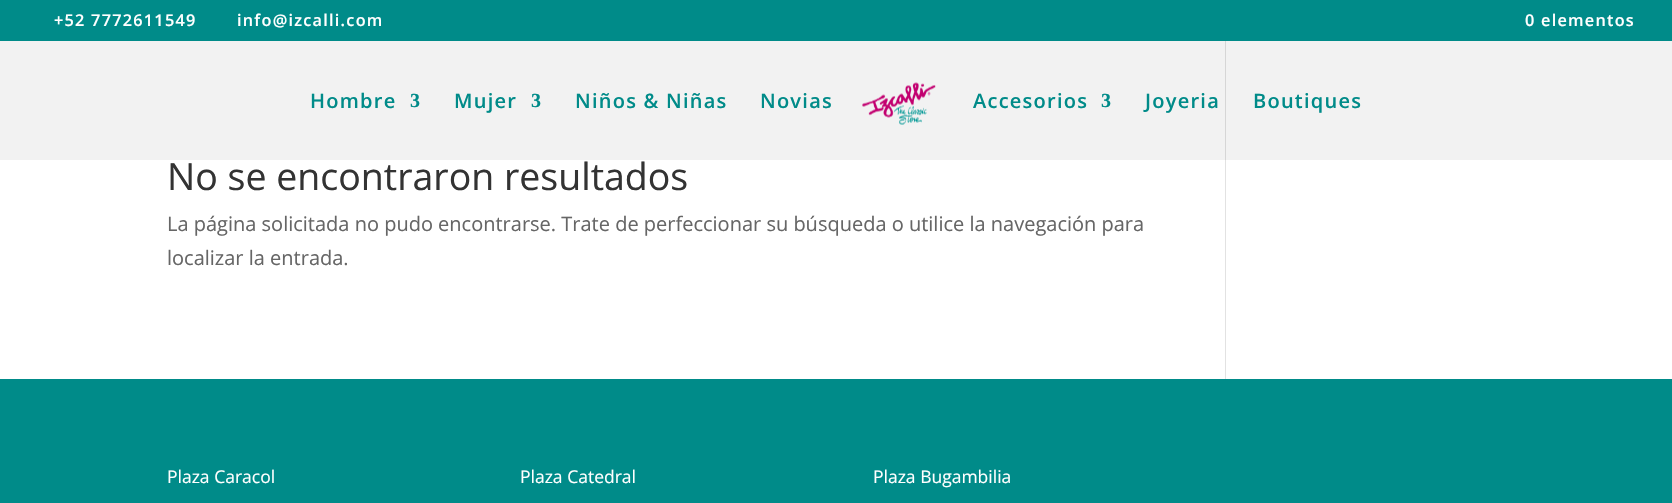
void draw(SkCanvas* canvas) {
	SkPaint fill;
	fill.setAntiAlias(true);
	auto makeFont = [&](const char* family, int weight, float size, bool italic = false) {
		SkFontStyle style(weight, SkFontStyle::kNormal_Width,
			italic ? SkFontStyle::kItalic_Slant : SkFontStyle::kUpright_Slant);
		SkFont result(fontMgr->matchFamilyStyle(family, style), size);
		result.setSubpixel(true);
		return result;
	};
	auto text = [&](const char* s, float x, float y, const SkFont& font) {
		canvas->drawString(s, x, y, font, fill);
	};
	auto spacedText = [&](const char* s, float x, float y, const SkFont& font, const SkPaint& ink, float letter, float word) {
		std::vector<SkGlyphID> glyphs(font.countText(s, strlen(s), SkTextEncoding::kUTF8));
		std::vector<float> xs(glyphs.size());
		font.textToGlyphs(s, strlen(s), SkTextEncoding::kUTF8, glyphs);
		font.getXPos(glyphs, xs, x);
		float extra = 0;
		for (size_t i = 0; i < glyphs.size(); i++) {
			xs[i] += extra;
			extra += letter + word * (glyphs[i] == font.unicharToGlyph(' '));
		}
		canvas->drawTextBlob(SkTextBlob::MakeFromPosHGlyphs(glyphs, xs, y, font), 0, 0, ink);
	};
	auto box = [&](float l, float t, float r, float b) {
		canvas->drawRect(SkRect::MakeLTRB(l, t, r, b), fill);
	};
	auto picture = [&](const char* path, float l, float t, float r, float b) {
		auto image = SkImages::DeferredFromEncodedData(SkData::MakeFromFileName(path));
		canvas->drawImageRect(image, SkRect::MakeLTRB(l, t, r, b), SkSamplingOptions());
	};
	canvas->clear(0xFFFFFFFF);
	fill.setColor(0xFF008B89);
	box(0, 0, 1672, 41);
	fill.setColor(0xFFE2E2E2);
	box(1225, 41, 1226, 379);
	fill.setColor(0x0D000000);
	box(0, 41, 1672, 160);
	picture("image0.png", 862, 82, 936, 125);
	fill.setColor(0xFF008B89);
	box(0, 379, 1672, 503);
	auto font1 = makeFont("Open Sans", 600, 16.25f);
	fill.setColor(0xFFFFFFFF);
	spacedText("+52 7772611549", 54, 26, font1, fill, 1.25f, 0);
	spacedText("info@izcalli.com", 237, 26, font1, fill, 1.25f, 0);
	spacedText("0 elementos", 1525, 26, font1, fill, 1.25f, 0);
	auto font2 = makeFont("Open Sans", 600, 20);
	fill.setColor(0xFF008B89);
	spacedText("Hombre", 310, 108, font2, fill, 1.25f, 0);
	auto font3 = makeFont("Liberation Serif", 700, 20);
	spacedText("3", 410, 107, font3, fill, 1.25f, 0);
	spacedText("Mujer", 454, 108, font2, fill, 1.25f, 0);
	spacedText("3", 531, 107, font3, fill, 1.25f, 0);
	spacedText("Niños & Niñas", 575, 108, font2, fill, 1.25f, 0);
	spacedText("Novias", 760, 108, font2, fill, 1.25f, 0);
	spacedText("Accesorios", 973, 108, font2, fill, 1.25f, 0);
	spacedText("3", 1101, 107, font3, fill, 1.25f, 0);
	spacedText("Joyeria", 1145, 108, font2, fill, 1.25f, 0);
	spacedText("Boutiques", 1253, 108, font2, fill, 1.25f, 0);
	auto font4 = makeFont("Open Sans", 400, 37.5f);
	fill.setColor(0xFF333333);
	text("No se encontraron resultados", 167, 190, font4);
	auto font5 = makeFont("Open Sans", 400, 20);
	fill.setColor(0xFF666666);
	text("La página solicitada no pudo encontrarse. Trate de perfeccionar su búsqueda o utilice la navegación para", 167, 231, font5);
	text("localizar la entrada.", 167, 265, font5);
	auto font6 = makeFont("Open Sans", 400, 17.5f);
	fill.setColor(0xFFFFFFFF);
	text("Plaza Caracol", 167, 483, font6);
	text("Plaza Catedral", 520, 483, font6);
	text("Plaza Bugambilia", 873, 483, font6);
}
